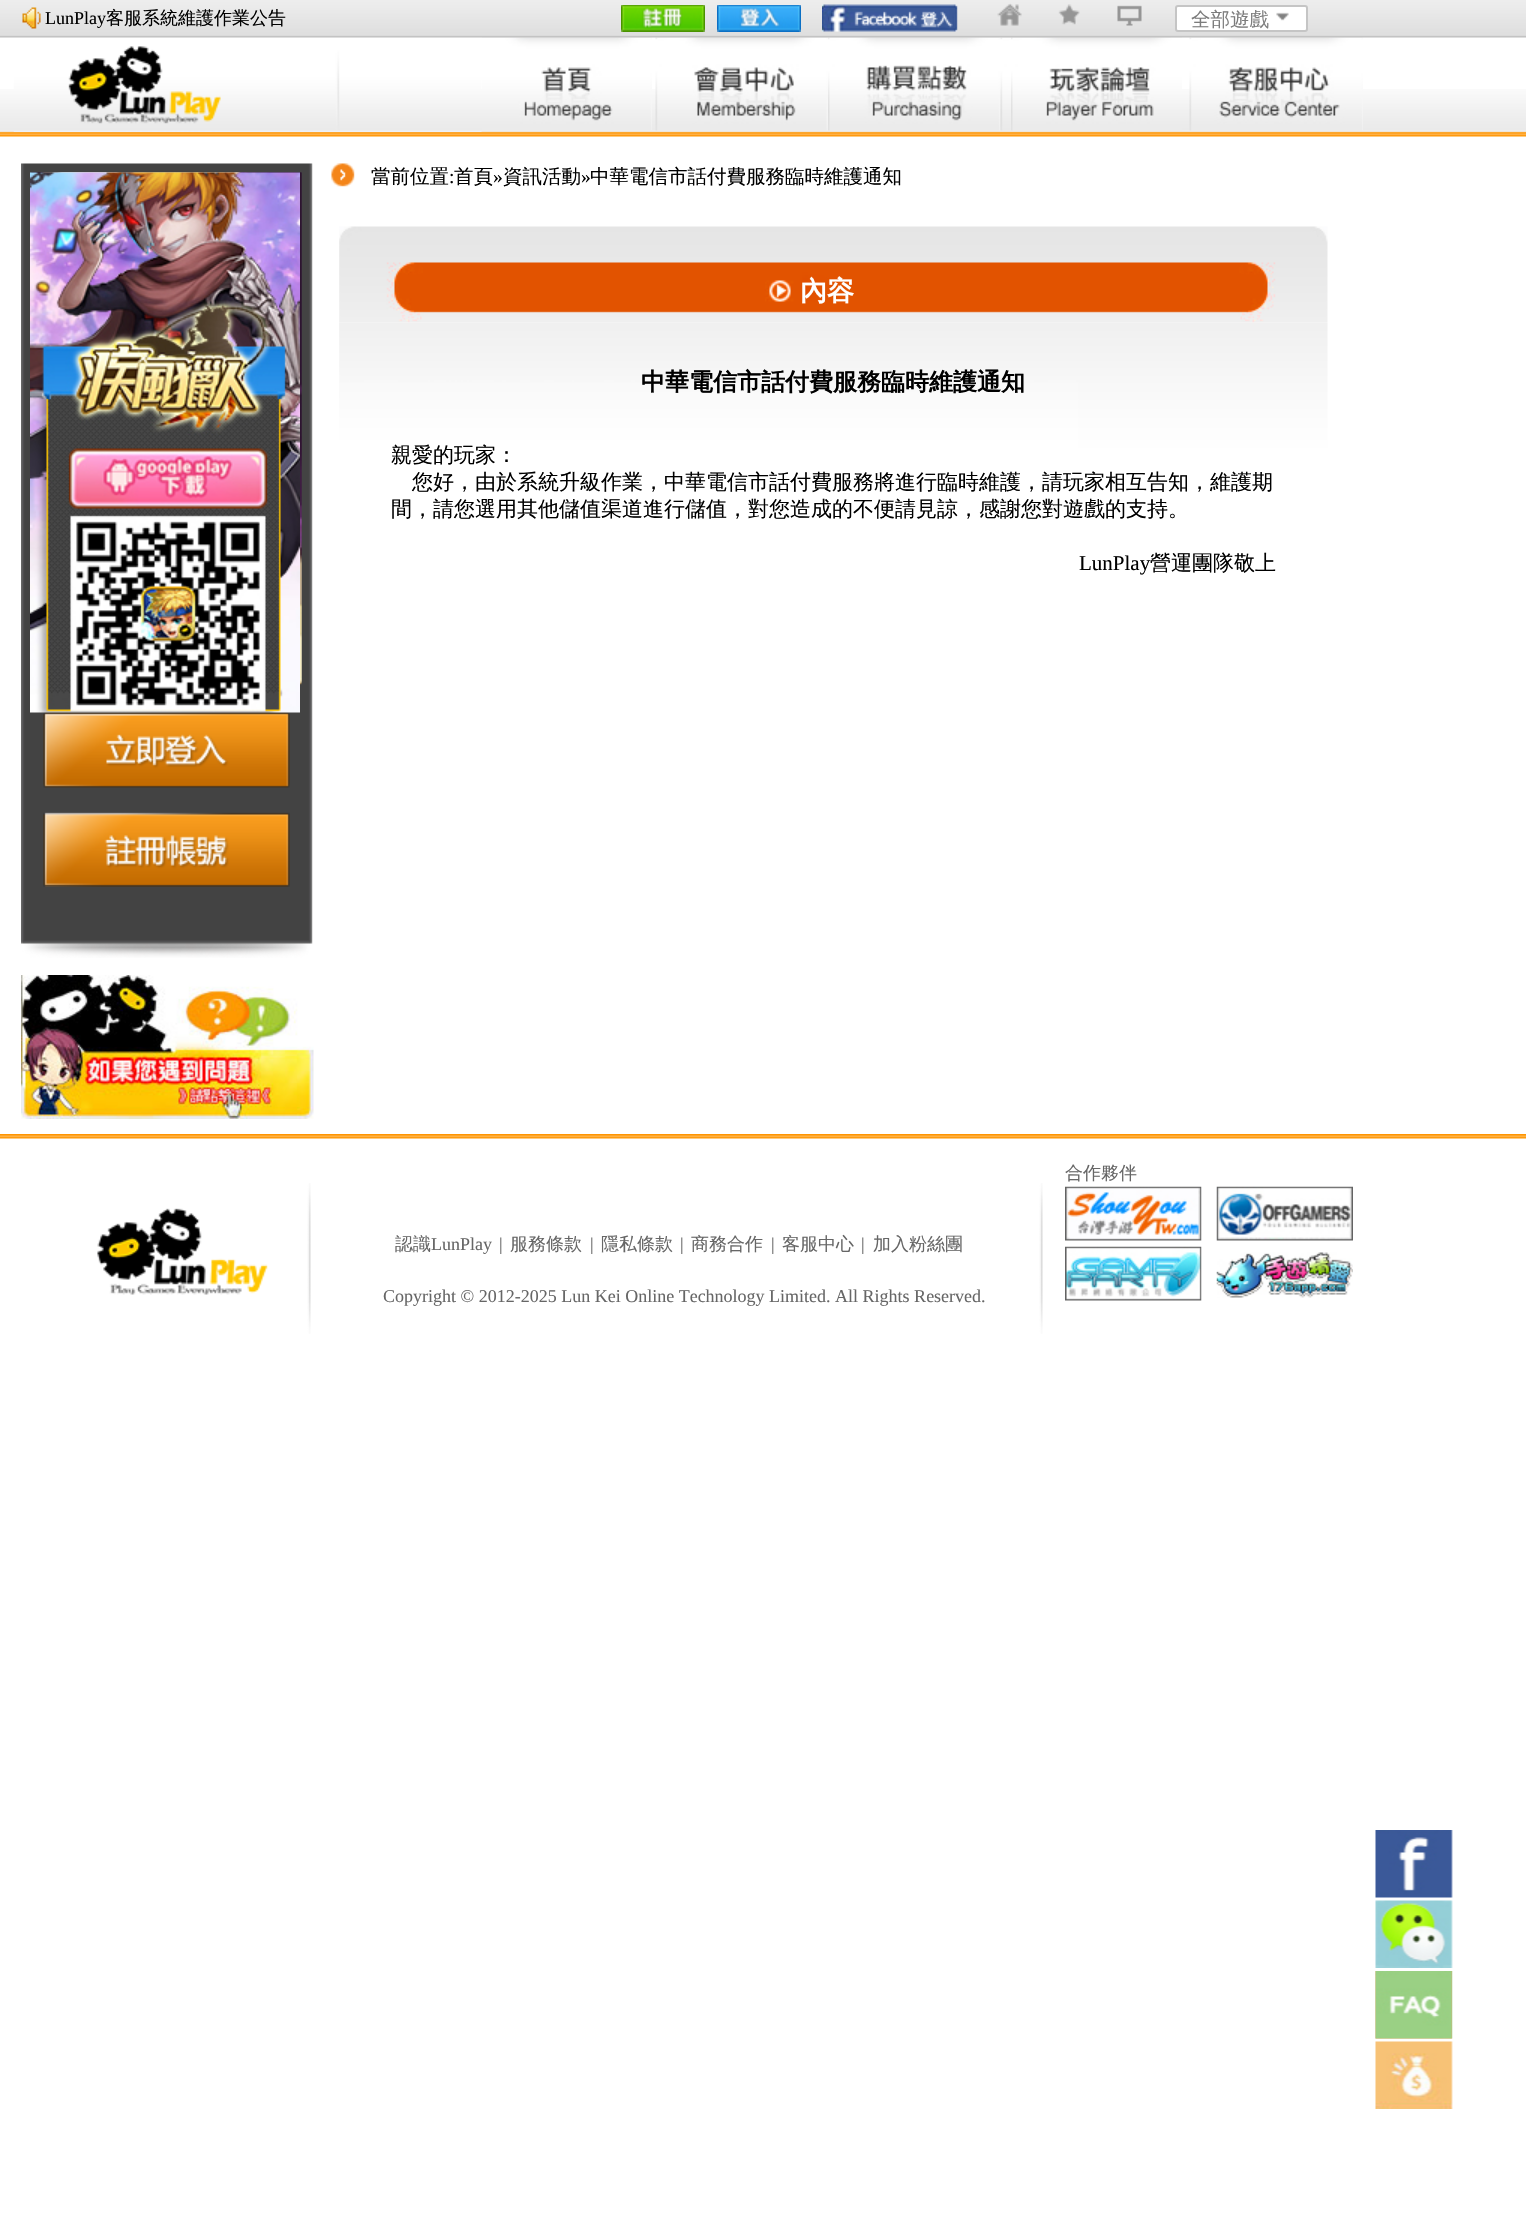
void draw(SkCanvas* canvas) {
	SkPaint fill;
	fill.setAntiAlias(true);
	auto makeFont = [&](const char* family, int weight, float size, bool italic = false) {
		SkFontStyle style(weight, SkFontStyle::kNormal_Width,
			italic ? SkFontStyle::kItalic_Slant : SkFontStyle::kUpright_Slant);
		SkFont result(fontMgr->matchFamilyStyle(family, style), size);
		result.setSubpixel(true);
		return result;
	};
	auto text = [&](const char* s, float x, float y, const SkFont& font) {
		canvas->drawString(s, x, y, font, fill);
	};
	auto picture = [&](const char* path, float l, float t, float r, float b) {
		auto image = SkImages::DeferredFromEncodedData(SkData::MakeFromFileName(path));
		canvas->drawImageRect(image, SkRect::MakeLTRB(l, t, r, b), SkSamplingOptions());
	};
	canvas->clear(0xFFFFFFFF);
	picture("image9.png", 0, 89, 1526, 137);
	picture("image11.png", 482, 37, 652, 130);
	picture("image12.png", 655, 37, 828, 131);
	picture("image13.png", 828, 37, 1000, 131);
	picture("image14.png", 1000, 37, 1171, 131);
	picture("image15.png", 1011, 37, 1182, 131);
	picture("image16.png", 1189, 37, 1363, 131);
	picture("image0.png", 0, 0, 1526, 38);
	picture("image1.png", 22, 7, 41, 29);
	picture("image2.png", 621, 5, 705, 32);
	picture("image3.png", 717, 5, 801, 32);
	picture("image4.png", 822, 4, 958, 32);
	picture("image5.png", 997, 3, 1022, 26);
	picture("image6.png", 1058, 4, 1080, 25);
	picture("image7.png", 1117, 5, 1142, 26);
	fill.setColor(0xFFFFFFFF);
	canvas->drawRoundRect(SkRect::MakeLTRB(1176, 6, 1307, 31), 2, 2, fill);
	fill.setStyle(SkPaint::kStroke_Style);
	fill.setStrokeWidth(2);
	fill.setColor(0xFFC5C5C5);
	canvas->drawRoundRect(SkRect::MakeLTRB(1176, 6, 1307, 31), 2, 2, fill);
	picture("image8.png", 1276, 12, 1289, 21);
	picture("image10.png", 13, 46, 482, 132);
	picture("image17.png", 21, 163, 313, 958);
	picture("image18.png", 31, 172, 302, 683);
	picture("image20.png", 43, 712, 290, 785);
	picture("image19.png", 30, 172, 300, 713);
	picture("image21.png", 43, 812, 290, 887);
	picture("image22.png", 21, 975, 314, 1119);
	picture("image23.png", 331, 163, 355, 187);
	picture("image24.png", 339, 226, 1328, 323);
	picture("image25.png", 339, 322, 1328, 461);
	picture("image26.png", 0, 1134, 1526, 1139);
	picture("image27.png", 1065, 1186, 1202, 1241);
	picture("image28.png", 1216, 1186, 1353, 1241);
	picture("image29.png", 1065, 1246, 1202, 1301);
	picture("image30.png", 1216, 1252, 1353, 1298);
	picture("image31.png", 97, 1208, 268, 1295);
	picture("image32.png", 307, 1183, 311, 1334);
	picture("image32.png", 1039, 1183, 1043, 1334);
	picture("image33.png", 1375, 1830, 1453, 1898);
	picture("image34.png", 1375, 1900, 1453, 1968);
	picture("image37.png", 1375, 1971, 1452, 2039);
	picture("image35.png", 1375, 1971, 1453, 2039);
	picture("image36.png", 1375, 2041, 1453, 2109);
	auto font1 = makeFont("Liberation Serif", 400, 18);
	fill.setStyle(SkPaint::kFill_Style);
	fill.setColor(0xFF000000);
	text("LunPlay", 45, 24, font1);
	auto font2 = makeFont("WenQuanYi Zen Hei", 500, 18);
	text("客服系統維護作業公告", 106, 24, font2);
	auto font3 = makeFont("WenQuanYi Zen Hei", 500, 19.5f);
	fill.setColor(0xFF7C7C7C);
	text("全部遊戲", 1191, 26, font3);
	fill.setColor(0xFF000000);
	text("當前位置", 371, 183, font3);
	auto font4 = makeFont("Liberation Serif", 400, 19.5f);
	text(":", 449, 183, font4);
	text("首頁", 454, 183, font3);
	text("»", 493, 183, font4);
	text("資訊活動", 503, 183, font3);
	text("»", 581, 183, font4);
	text("中華電信市話付費服務臨時維護通知", 590, 183, font3);
	auto font5 = makeFont("WenQuanYi Zen Hei", 700, 27);
	fill.setColor(0xFFFFFFFF);
	text("內容", 800, 300, font5);
	auto font6 = makeFont("WenQuanYi Zen Hei", 700, 24);
	fill.setColor(0xFF000000);
	text("中華電信市話付費服務臨時維護通知", 641, 390, font6);
	auto font7 = makeFont("WenQuanYi Zen Hei", 500, 21);
	text("親愛的玩家：", 391, 462, font7);
	text("您好，由於系統升級作業，中華電信市話付費服務將進行臨時維護，請玩家相互告知，維護期", 412, 489, font7);
	text("間，請您選用其他儲值渠道進行儲值，對您造成的不便請見諒，感謝您對遊戲的支持。", 391, 516, font7);
	auto font8 = makeFont("Liberation Serif", 400, 21);
	text("LunPlay", 1079, 570, font8);
	text("營運團隊敬上", 1150, 570, font7);
	fill.setColor(0xFF666666);
	text("合作夥伴", 1065, 1179, font2);
	text("認識", 395, 1250, font2);
	text("LunPlay", 431, 1250, font1);
	text("|", 499, 1250, font1);
	text("服務條款", 510, 1250, font2);
	text("|", 590, 1250, font1);
	text("隱私條款", 601, 1250, font2);
	text("|", 680, 1250, font1);
	text("商務合作", 691, 1250, font2);
	text("|", 771, 1250, font1);
	text("客服中心", 782, 1250, font2);
	text("|", 861, 1250, font1);
	text("加入粉絲團", 873, 1250, font2);
	text("Copyright © 2012-2025 Lun Kei Online Technology Limited. All Rights Reserved.", 383, 1302, font1);
}
